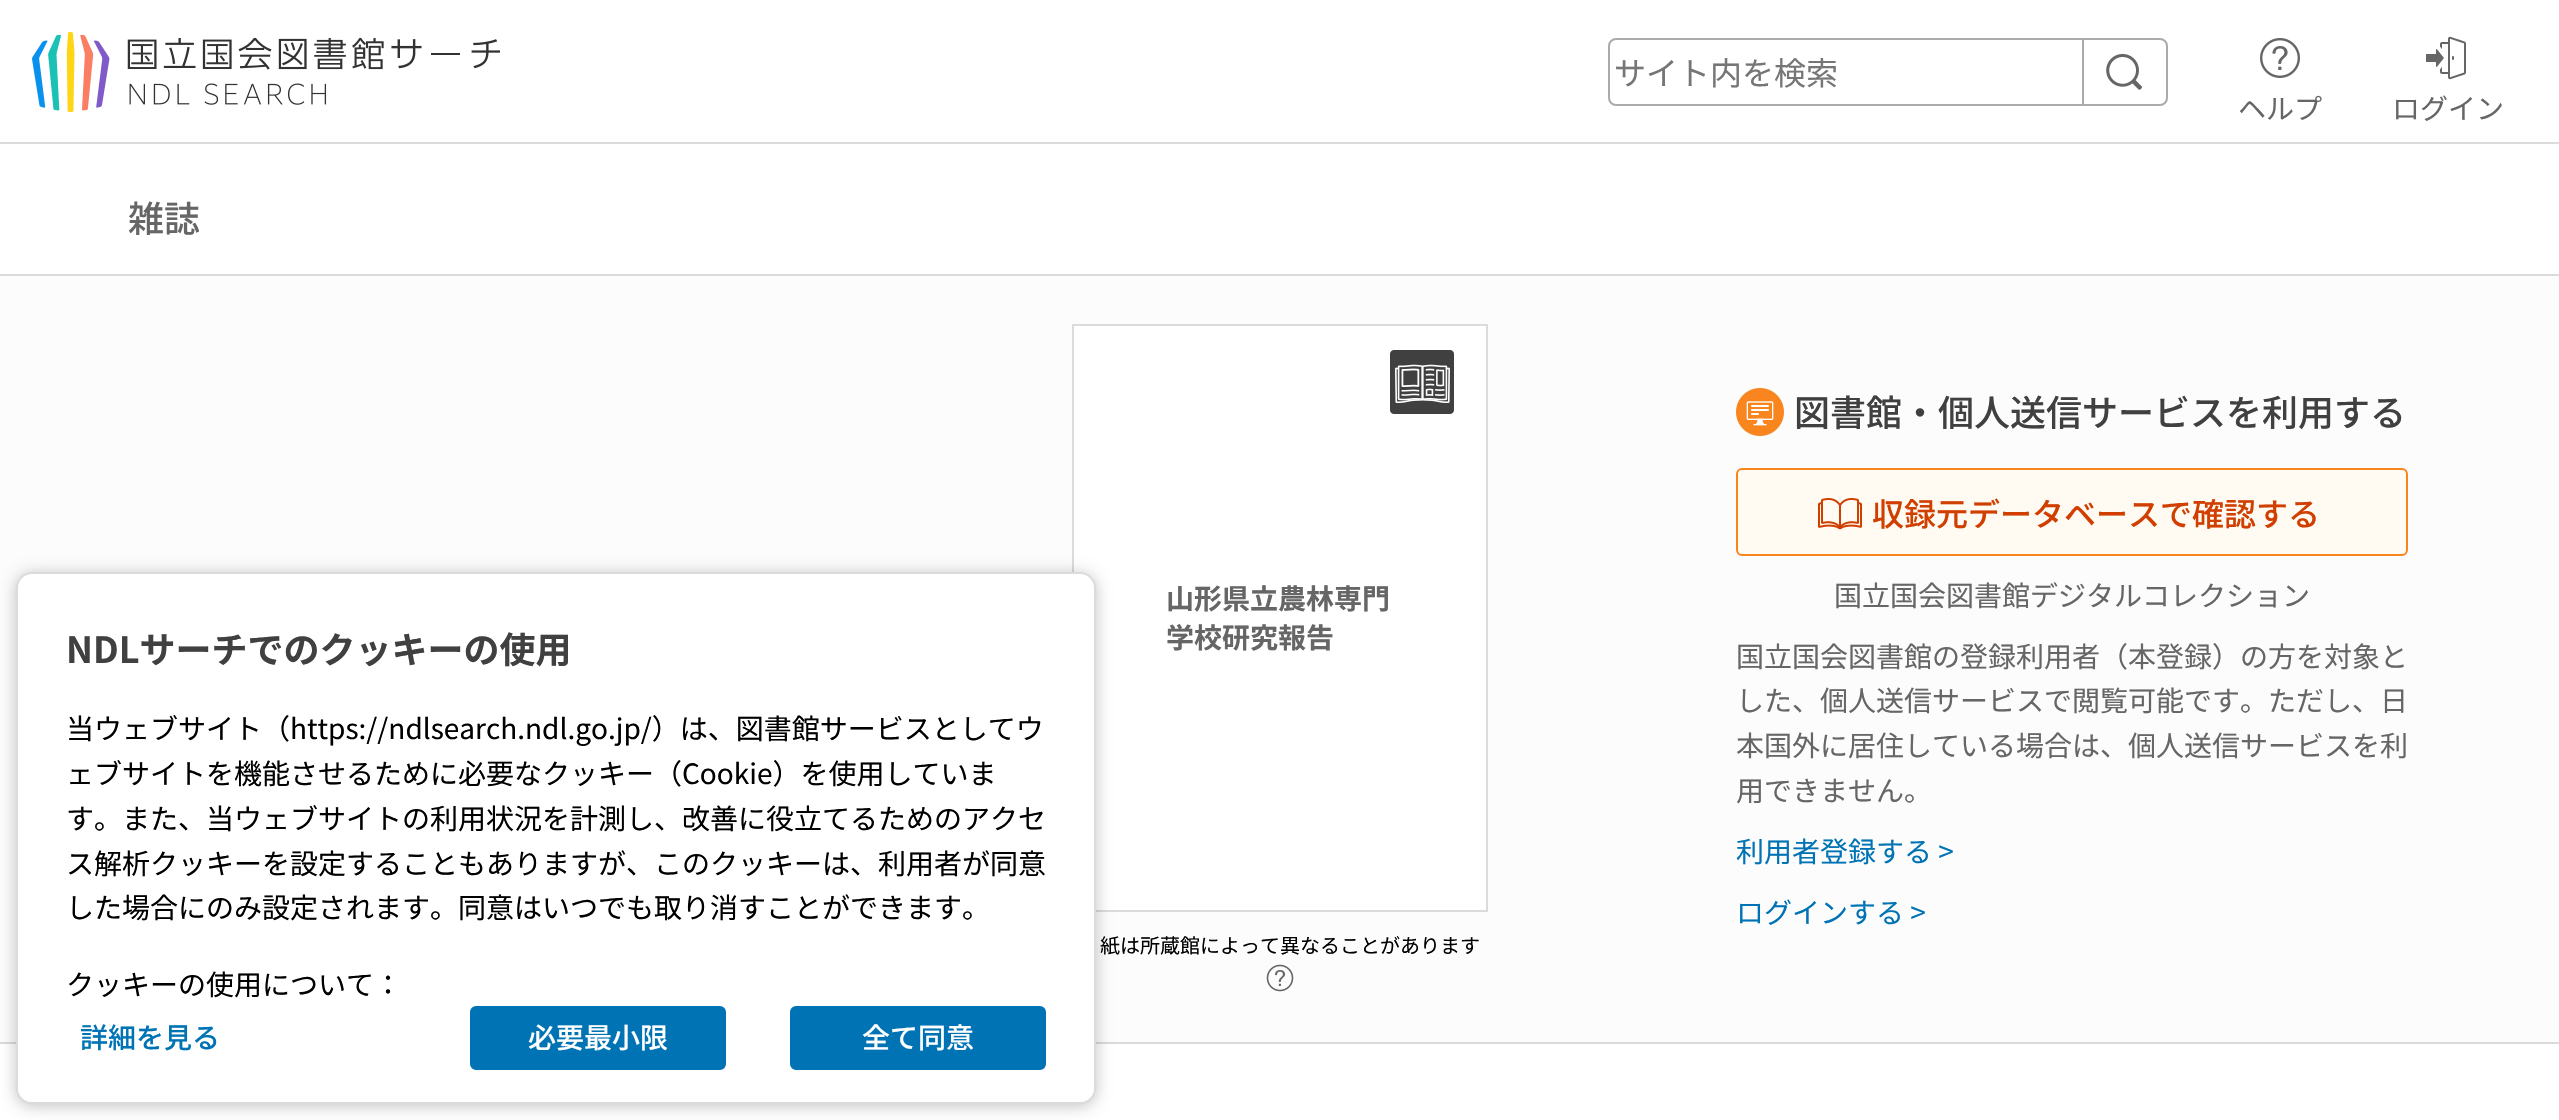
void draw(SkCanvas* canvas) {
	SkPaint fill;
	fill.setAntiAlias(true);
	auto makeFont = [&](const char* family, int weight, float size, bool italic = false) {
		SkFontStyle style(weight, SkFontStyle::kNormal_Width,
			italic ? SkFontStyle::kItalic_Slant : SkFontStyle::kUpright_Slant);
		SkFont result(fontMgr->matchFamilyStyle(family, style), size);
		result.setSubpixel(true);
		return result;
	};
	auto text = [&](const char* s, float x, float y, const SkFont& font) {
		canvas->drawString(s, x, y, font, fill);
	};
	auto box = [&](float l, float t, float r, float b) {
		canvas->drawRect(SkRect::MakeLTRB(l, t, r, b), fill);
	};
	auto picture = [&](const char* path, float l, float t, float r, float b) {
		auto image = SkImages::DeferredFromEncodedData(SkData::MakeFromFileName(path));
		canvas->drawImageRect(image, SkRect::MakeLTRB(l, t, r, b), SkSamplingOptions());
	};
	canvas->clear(0xFFFFFFFF);
	fill.setColor(0xFFDBDBDB);
	box(0, 142, 2559, 144);
	picture("image0.png", 32, 32, 500, 112);
	fill.setStyle(SkPaint::kStroke_Style);
	fill.setStrokeWidth(2);
	fill.setColor(0xFFAAAAAA);
	canvas->drawRoundRect(SkRect::MakeLTRB(1609, 39, 2167, 105), 7, 7, fill);
	fill.setStyle(SkPaint::kFill_Style);
	box(2082, 38, 2084, 106);
	picture("image1.png", 2106, 53, 2142, 90);
	picture("image2.png", 2260, 38, 2300, 78);
	picture("image3.png", 2426, 36, 2466, 80);
	fill.setColor(0xFFFCFCFC);
	box(0, 276, 2559, 1042);
	fill.setColor(0xFFDBDBDB);
	box(0, 274, 2559, 276);
	box(0, 1042, 2559, 1044);
	fill.setColor(0xFFFFFFFF);
	canvas->drawRect(SkRect::MakeLTRB(1073, 325, 1487, 911), fill);
	fill.setStyle(SkPaint::kStroke_Style);
	fill.setColor(0xFFDBDBDB);
	canvas->drawRect(SkRect::MakeLTRB(1073, 325, 1487, 911), fill);
	picture("image4.png", 1390, 350, 1454, 414);
	picture("image5.png", 1266, 964, 1294, 992);
	picture("image6.png", 1736, 388, 1784, 436);
	fill.setStyle(SkPaint::kFill_Style);
	fill.setColor(0xFFFFFBF2);
	canvas->drawRoundRect(SkRect::MakeLTRB(1737, 469, 2407, 555), 5, 5, fill);
	fill.setStyle(SkPaint::kStroke_Style);
	fill.setColor(0xFFF9851F);
	canvas->drawRoundRect(SkRect::MakeLTRB(1737, 469, 2407, 555), 5, 5, fill);
	picture("image7.png", 1818, 497, 1862, 530);
	fill.setStyle(SkPaint::kFill_Style);
	fill.setColor(0x3D000000);
	fill.setMaskFilter(SkMaskFilter::MakeBlur(kNormal_SkBlurStyle, 8));
	canvas->drawRoundRect(SkRect::MakeLTRB(16, 574, 1096, 1106), 16, 16, fill);
	fill.setMaskFilter(nullptr);
	fill.setColor(0xFFFFFFFF);
	canvas->drawRoundRect(SkRect::MakeLTRB(17, 573, 1095, 1103), 15, 15, fill);
	fill.setStyle(SkPaint::kStroke_Style);
	fill.setColor(0xFFDBDBDB);
	canvas->drawRoundRect(SkRect::MakeLTRB(17, 573, 1095, 1103), 15, 15, fill);
	fill.setStyle(SkPaint::kFill_Style);
	fill.setColor(0xFFFFFFFF);
	canvas->drawPath(SkPathBuilder().moveTo(18, 930).lineTo(1094, 930).lineTo(1094, 1088).cubicTo(1094, 1095.5f, 1087.5f, 1102, 1080, 1102).lineTo(32, 1102).cubicTo(24.5f, 1102, 18, 1095.5f, 18, 1088).close().detach(), fill);
	fill.setColor(0xFF0073B5);
	canvas->drawRoundRect(SkRect::MakeLTRB(471, 1007, 725, 1069), 5, 5, fill);
	fill.setStyle(SkPaint::kStroke_Style);
	canvas->drawRoundRect(SkRect::MakeLTRB(471, 1007, 725, 1069), 5, 5, fill);
	fill.setStyle(SkPaint::kFill_Style);
	canvas->drawRoundRect(SkRect::MakeLTRB(791, 1007, 1045, 1069), 5, 5, fill);
	fill.setStyle(SkPaint::kStroke_Style);
	canvas->drawRoundRect(SkRect::MakeLTRB(791, 1007, 1045, 1069), 5, 5, fill);
	auto font1 = makeFont("Noto Sans JP", 400, 32);
	fill.setStyle(SkPaint::kFill_Style);
	fill.setColor(0xFF767676);
	text("サイト内を検索", 1614, 85, font1);
	auto font2 = makeFont("Noto Sans JP", 400, 28);
	fill.setColor(0xFF666666);
	text("ヘルプ", 2238, 119, font2);
	text("ログイン", 2392, 119, font2);
	auto font3 = makeFont("Noto Sans JP", 500, 36);
	text("雑誌", 128, 232, font3);
	auto font4 = makeFont("Noto Sans JP", 700, 28);
	text("山形県立農林専門", 1166, 609, font4);
	text("学校研究報告", 1166, 648, font4);
	auto font5 = makeFont("Noto Sans JP", 400, 20);
	fill.setColor(0xFF000000);
	text("紙は所蔵館によって異なることがあります", 1100, 953, font5);
	fill.setColor(0xFF404040);
	text("図書館・個人送信サービスを利用する", 1794, 426, font3);
	auto font6 = makeFont("Noto Sans JP", 500, 32);
	fill.setColor(0xFFD13F00);
	text("収録元データベースで確認する", 1872, 526, font6);
	fill.setColor(0xFF666666);
	text("国立国会図書館デジタルコレクション", 1834, 606, font2);
	text("国立国会図書館の登録利用者（本登録）の方を対象と", 1736, 667, font2);
	text("した、個人送信サービスで閲覧可能です。ただし、日", 1736, 711, font2);
	text("本国外に居住している場合は、個人送信サービスを利", 1736, 756, font2);
	text("用できません。", 1736, 801, font2);
	fill.setColor(0xFF0073B5);
	text("利用者登録する >", 1736, 862, font2);
	text("ログインする >", 1736, 923, font2);
	auto font7 = makeFont("Noto Sans JP", 700, 36);
	fill.setColor(0xFF404040);
	text("NDLサーチでのクッキーの使用", 66, 663, font7);
	fill.setColor(0xFF000000);
	text("当ウェブサイト（https://ndlsearch.ndl.go.jp/）は、図書館サービスとしてウ", 66, 739, font2);
	text("ェブサイトを機能させるために必要なクッキー（Cookie）を使用していま", 66, 784, font2);
	text("す。また、当ウェブサイトの利用状況を計測し、改善に役立てるためのアクセ", 66, 829, font2);
	text("ス解析クッキーを設定することもありますが、このクッキーは、利用者が同意", 66, 874, font2);
	text("した場合にのみ設定されます。同意はいつでも取り消すことができます。", 66, 918, font2);
	text("クッキーの使用について：", 66, 995, font2);
	auto font8 = makeFont("Noto Sans JP", 500, 28);
	fill.setColor(0xFF0073B5);
	text("詳細を見る", 80, 1048, font8);
	fill.setColor(0xFFFFFFFF);
	text("必要最小限", 528, 1048, font8);
	text("全て同意", 862, 1048, font8);
}
